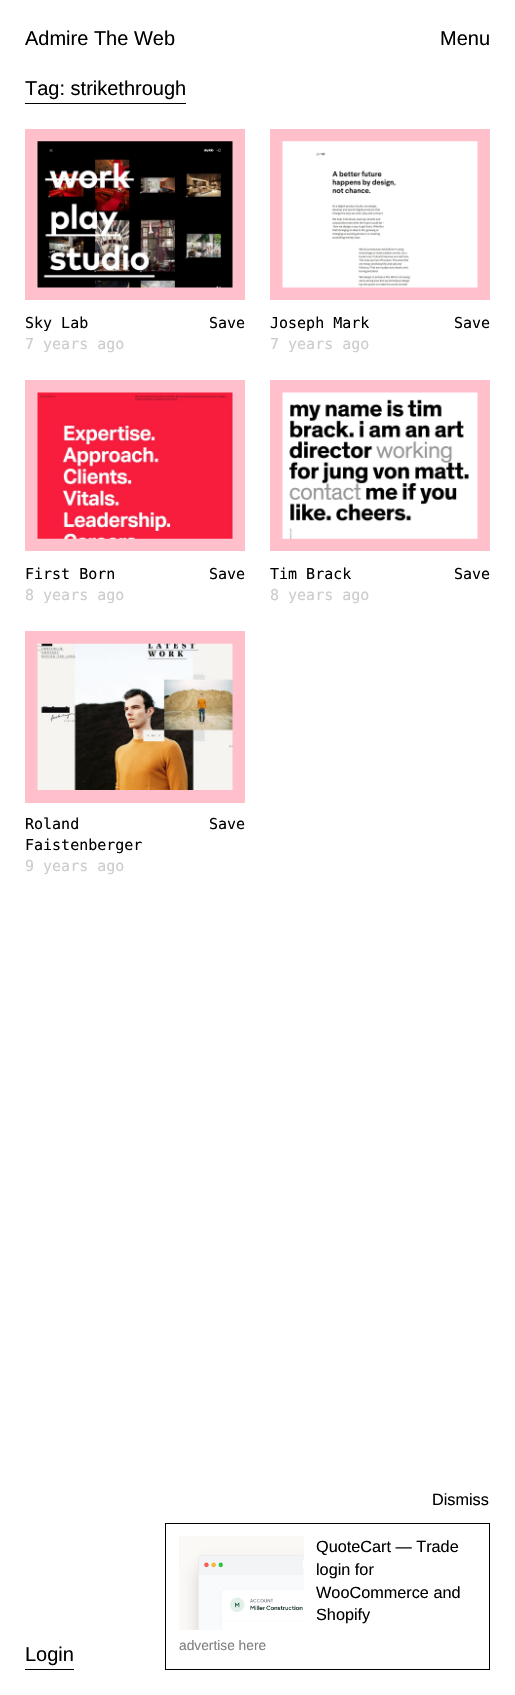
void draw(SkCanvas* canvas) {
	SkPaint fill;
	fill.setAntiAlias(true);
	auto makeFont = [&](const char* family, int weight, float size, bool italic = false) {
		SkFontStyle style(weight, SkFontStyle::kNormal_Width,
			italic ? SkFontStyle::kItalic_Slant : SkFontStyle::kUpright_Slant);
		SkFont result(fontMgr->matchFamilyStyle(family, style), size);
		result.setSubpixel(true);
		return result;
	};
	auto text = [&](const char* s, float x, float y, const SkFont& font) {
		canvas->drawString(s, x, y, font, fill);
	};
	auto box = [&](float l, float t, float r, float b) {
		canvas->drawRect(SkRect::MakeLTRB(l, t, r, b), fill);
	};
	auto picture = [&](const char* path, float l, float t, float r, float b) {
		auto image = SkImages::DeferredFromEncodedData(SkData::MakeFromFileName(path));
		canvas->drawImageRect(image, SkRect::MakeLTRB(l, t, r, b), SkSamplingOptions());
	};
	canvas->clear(0xFFFFFFFF);
	fill.setColor(0xFF000000);
	box(25, 103, 186, 104);
	fill.setStyle(SkPaint::kStroke_Style);
	fill.setStrokeWidth(13);
	fill.setColor(0xFFFFC0CB);
	canvas->drawRect(SkRect::MakeLTRB(31.5f, 135.5f, 238.5f, 293.5f), fill);
	fill.setStyle(SkPaint::kFill_Style);
	box(38, 142, 232, 287);
	picture("image0.png", 37, 141, 233, 288);
	fill.setStyle(SkPaint::kStroke_Style);
	canvas->drawRect(SkRect::MakeLTRB(276.5f, 135.5f, 483.5f, 293.5f), fill);
	fill.setStyle(SkPaint::kFill_Style);
	box(283, 142, 477, 287);
	picture("image1.png", 282, 141, 478, 288);
	fill.setStyle(SkPaint::kStroke_Style);
	canvas->drawRect(SkRect::MakeLTRB(31.5f, 386.5f, 238.5f, 544.5f), fill);
	fill.setStyle(SkPaint::kFill_Style);
	box(38, 393, 232, 538);
	picture("image2.png", 37, 392, 233, 539);
	fill.setStyle(SkPaint::kStroke_Style);
	canvas->drawRect(SkRect::MakeLTRB(276.5f, 386.5f, 483.5f, 544.5f), fill);
	fill.setStyle(SkPaint::kFill_Style);
	box(283, 393, 477, 538);
	picture("image3.png", 282, 392, 478, 539);
	fill.setStyle(SkPaint::kStroke_Style);
	canvas->drawRect(SkRect::MakeLTRB(31.5f, 637.5f, 238.5f, 796.5f), fill);
	picture("image4.png", 37, 643, 233, 790);
	fill.setStrokeWidth(1);
	fill.setColor(0xFF000000);
	canvas->drawRect(SkRect::MakeLTRB(165.5f, 1523.5f, 489.5f, 1669.5f), fill);
	picture("image5.png", 179, 1536, 304, 1630);
	fill.setStyle(SkPaint::kFill_Style);
	box(25, 1669, 74, 1670);
	auto font1 = makeFont("Liberation Sans", 400, 20);
	text("Admire The Web", 25, 45, font1);
	text("Menu", 440, 45, font1);
	text("Tag: strikethrough", 25, 95, font1);
	auto font2 = makeFont("DejaVu Sans Mono", 400, 15);
	text("Sky Lab", 25, 328, font2);
	text("Save", 209, 328, font2);
	fill.setColor(0xFFCCCCCC);
	text("7 years ago", 25, 349, font2);
	fill.setColor(0xFF000000);
	text("Joseph Mark", 270, 328, font2);
	text("Save", 454, 328, font2);
	fill.setColor(0xFFCCCCCC);
	text("7 years ago", 270, 349, font2);
	fill.setColor(0xFF000000);
	text("First Born", 25, 579, font2);
	text("Save", 209, 579, font2);
	fill.setColor(0xFFCCCCCC);
	text("8 years ago", 25, 600, font2);
	fill.setColor(0xFF000000);
	text("Tim Brack", 270, 579, font2);
	text("Save", 454, 579, font2);
	fill.setColor(0xFFCCCCCC);
	text("8 years ago", 270, 600, font2);
	fill.setColor(0xFF000000);
	text("Roland", 25, 829, font2);
	text("Faistenberger", 25, 850, font2);
	text("Save", 209, 829, font2);
	fill.setColor(0xFFCCCCCC);
	text("9 years ago", 25, 871, font2);
	auto font3 = makeFont("Liberation Sans", 400, 16.25f);
	fill.setColor(0xFF000000);
	text("Dismiss", 432, 1505, font3);
	text("QuoteCart — Trade", 316, 1552, font3);
	text("login for", 316, 1575, font3);
	text("WooCommerce and", 316, 1598, font3);
	text("Shopify", 316, 1620, font3);
	auto font4 = makeFont("Liberation Sans", 400, 13.75f);
	fill.setColor(0xFF808080);
	text("advertise here", 179, 1650, font4);
	fill.setColor(0xFF000000);
	text("Login", 25, 1661, font1);
}
